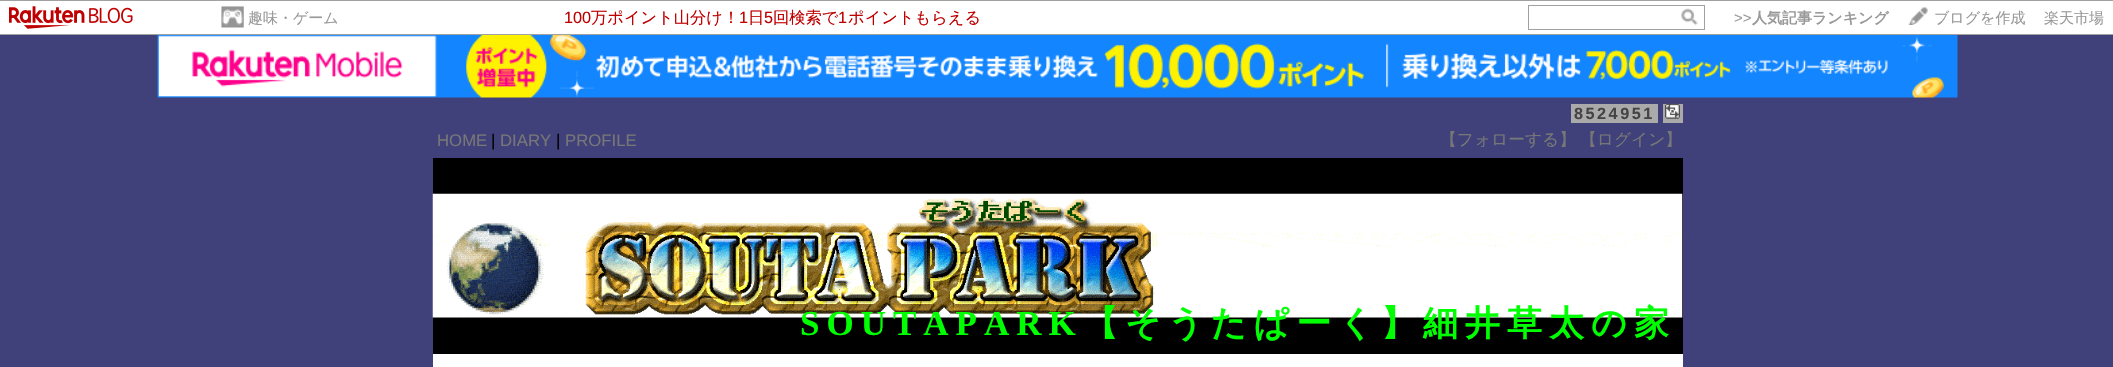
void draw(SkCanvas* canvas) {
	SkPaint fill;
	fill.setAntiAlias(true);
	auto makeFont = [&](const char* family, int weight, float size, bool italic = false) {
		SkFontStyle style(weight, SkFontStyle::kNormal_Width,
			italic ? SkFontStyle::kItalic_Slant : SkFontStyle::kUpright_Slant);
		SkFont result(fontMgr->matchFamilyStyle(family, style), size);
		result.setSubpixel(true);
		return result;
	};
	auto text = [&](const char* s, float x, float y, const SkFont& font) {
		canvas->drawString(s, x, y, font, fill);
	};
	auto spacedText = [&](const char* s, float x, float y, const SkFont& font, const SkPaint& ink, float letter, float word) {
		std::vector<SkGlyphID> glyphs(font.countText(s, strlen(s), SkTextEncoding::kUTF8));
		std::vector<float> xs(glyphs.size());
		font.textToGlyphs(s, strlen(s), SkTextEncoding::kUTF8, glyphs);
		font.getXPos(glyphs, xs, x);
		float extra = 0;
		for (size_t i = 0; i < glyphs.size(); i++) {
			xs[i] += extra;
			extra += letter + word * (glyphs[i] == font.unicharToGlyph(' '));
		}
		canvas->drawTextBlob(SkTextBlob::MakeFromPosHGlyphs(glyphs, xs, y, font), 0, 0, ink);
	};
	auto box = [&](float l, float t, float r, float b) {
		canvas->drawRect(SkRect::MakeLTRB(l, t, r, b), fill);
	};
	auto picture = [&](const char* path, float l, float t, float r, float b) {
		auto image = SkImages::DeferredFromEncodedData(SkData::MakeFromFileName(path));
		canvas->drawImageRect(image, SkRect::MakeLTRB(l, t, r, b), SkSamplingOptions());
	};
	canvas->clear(0xFF40407A);
	fill.setColor(0xFFFFFFFF);
	box(0, 1, 2113, 34);
	fill.setColor(0xFFA1A1A1);
	box(0, 0, 2113, 1);
	box(0, 34, 2113, 35);
	picture("image0.png", 9, 6, 133, 29);
	picture("image1.png", 221, 6, 244, 28);
	fill.setStyle(SkPaint::kStroke_Style);
	fill.setStrokeWidth(1);
	canvas->drawRect(SkRect::MakeLTRB(1528.5f, 5.5f, 1704.5f, 29.5f), fill);
	picture("image2.png", 1681, 8, 1698, 26);
	picture("image3.png", 1908, 7, 1928, 25);
	picture("image4.png", 157, 35, 1958, 98);
	fill.setStyle(SkPaint::kFill_Style);
	fill.setColor(0xFFAAAAAA);
	box(1663, 104, 1683, 123);
	picture("image5.png", 1665, 103, 1680, 119);
	box(1571, 104, 1658, 123);
	fill.setColor(0xFF000000);
	box(433, 158, 1683, 354);
	picture("image6.png", 432, 193, 1683, 318);
	fill.setColor(0xFFFFFFFF);
	box(433, 354, 1683, 367);
	auto font1 = makeFont("WenQuanYi Zen Hei", 500, 15);
	fill.setColor(0xFF999999);
	text("趣味・ゲーム", 248, 23, font1);
	auto font2 = makeFont("Liberation Sans", 400, 16.25f);
	fill.setColor(0xFFBF0000);
	text("100", 564, 23, font2);
	auto font3 = makeFont("WenQuanYi Zen Hei", 500, 16.25f);
	text("万ポイント山分け！", 591, 23, font3);
	text("1", 739, 23, font2);
	text("日", 748, 23, font3);
	text("5", 764, 23, font2);
	text("回検索で", 773, 23, font3);
	text("1", 838, 23, font2);
	text("ポイントもらえる", 848, 23, font3);
	auto font4 = makeFont("Liberation Sans", 400, 15);
	fill.setColor(0xFF999999);
	text(">>", 1734, 23, font4);
	auto font5 = makeFont("WenQuanYi Zen Hei", 700, 15);
	text("人気記事ランキング", 1752, 23, font5);
	canvas->save();
	canvas->clipRect(SkRect::MakeLTRB(1734, 5, 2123, 25));
	text("ブログを作成", 1934, 23, font1);
	canvas->restore();
	text("楽天市場", 2044, 23, font1);
	auto font6 = makeFont("Liberation Sans", 700, 16.25f);
	fill.setColor(0xFF444444);
	spacedText("8524951", 1574, 119, font6, fill, 2.5f, 0);
	auto font7 = makeFont("Liberation Sans", 400, 16.75f);
	fill.setColor(0xFF777777);
	text("HOME", 437, 146, font7);
	fill.setColor(0xFF000000);
	text("|", 491, 146, font7);
	fill.setColor(0xFF777777);
	text("DIARY", 500, 146, font7);
	fill.setColor(0xFF000000);
	text("|", 556, 146, font7);
	fill.setColor(0xFF777777);
	text("PROFILE", 565, 146, font7);
	auto font8 = makeFont("WenQuanYi Zen Hei", 500, 16.75f);
	text("【フォローする】", 1440, 145, font8);
	text("【ログイン】", 1580, 145, font8);
	auto font9 = makeFont("Liberation Serif", 700, 35);
	fill.setColor(0xFF00FF01);
	spacedText("SOUTAPARK", 800, 335, font9, fill, 7, 0);
	auto font10 = makeFont("WenQuanYi Zen Hei", 700, 35);
	spacedText("【そうたぱーく】細井草太の家", 1083, 335, font10, fill, 7, 0);
}
